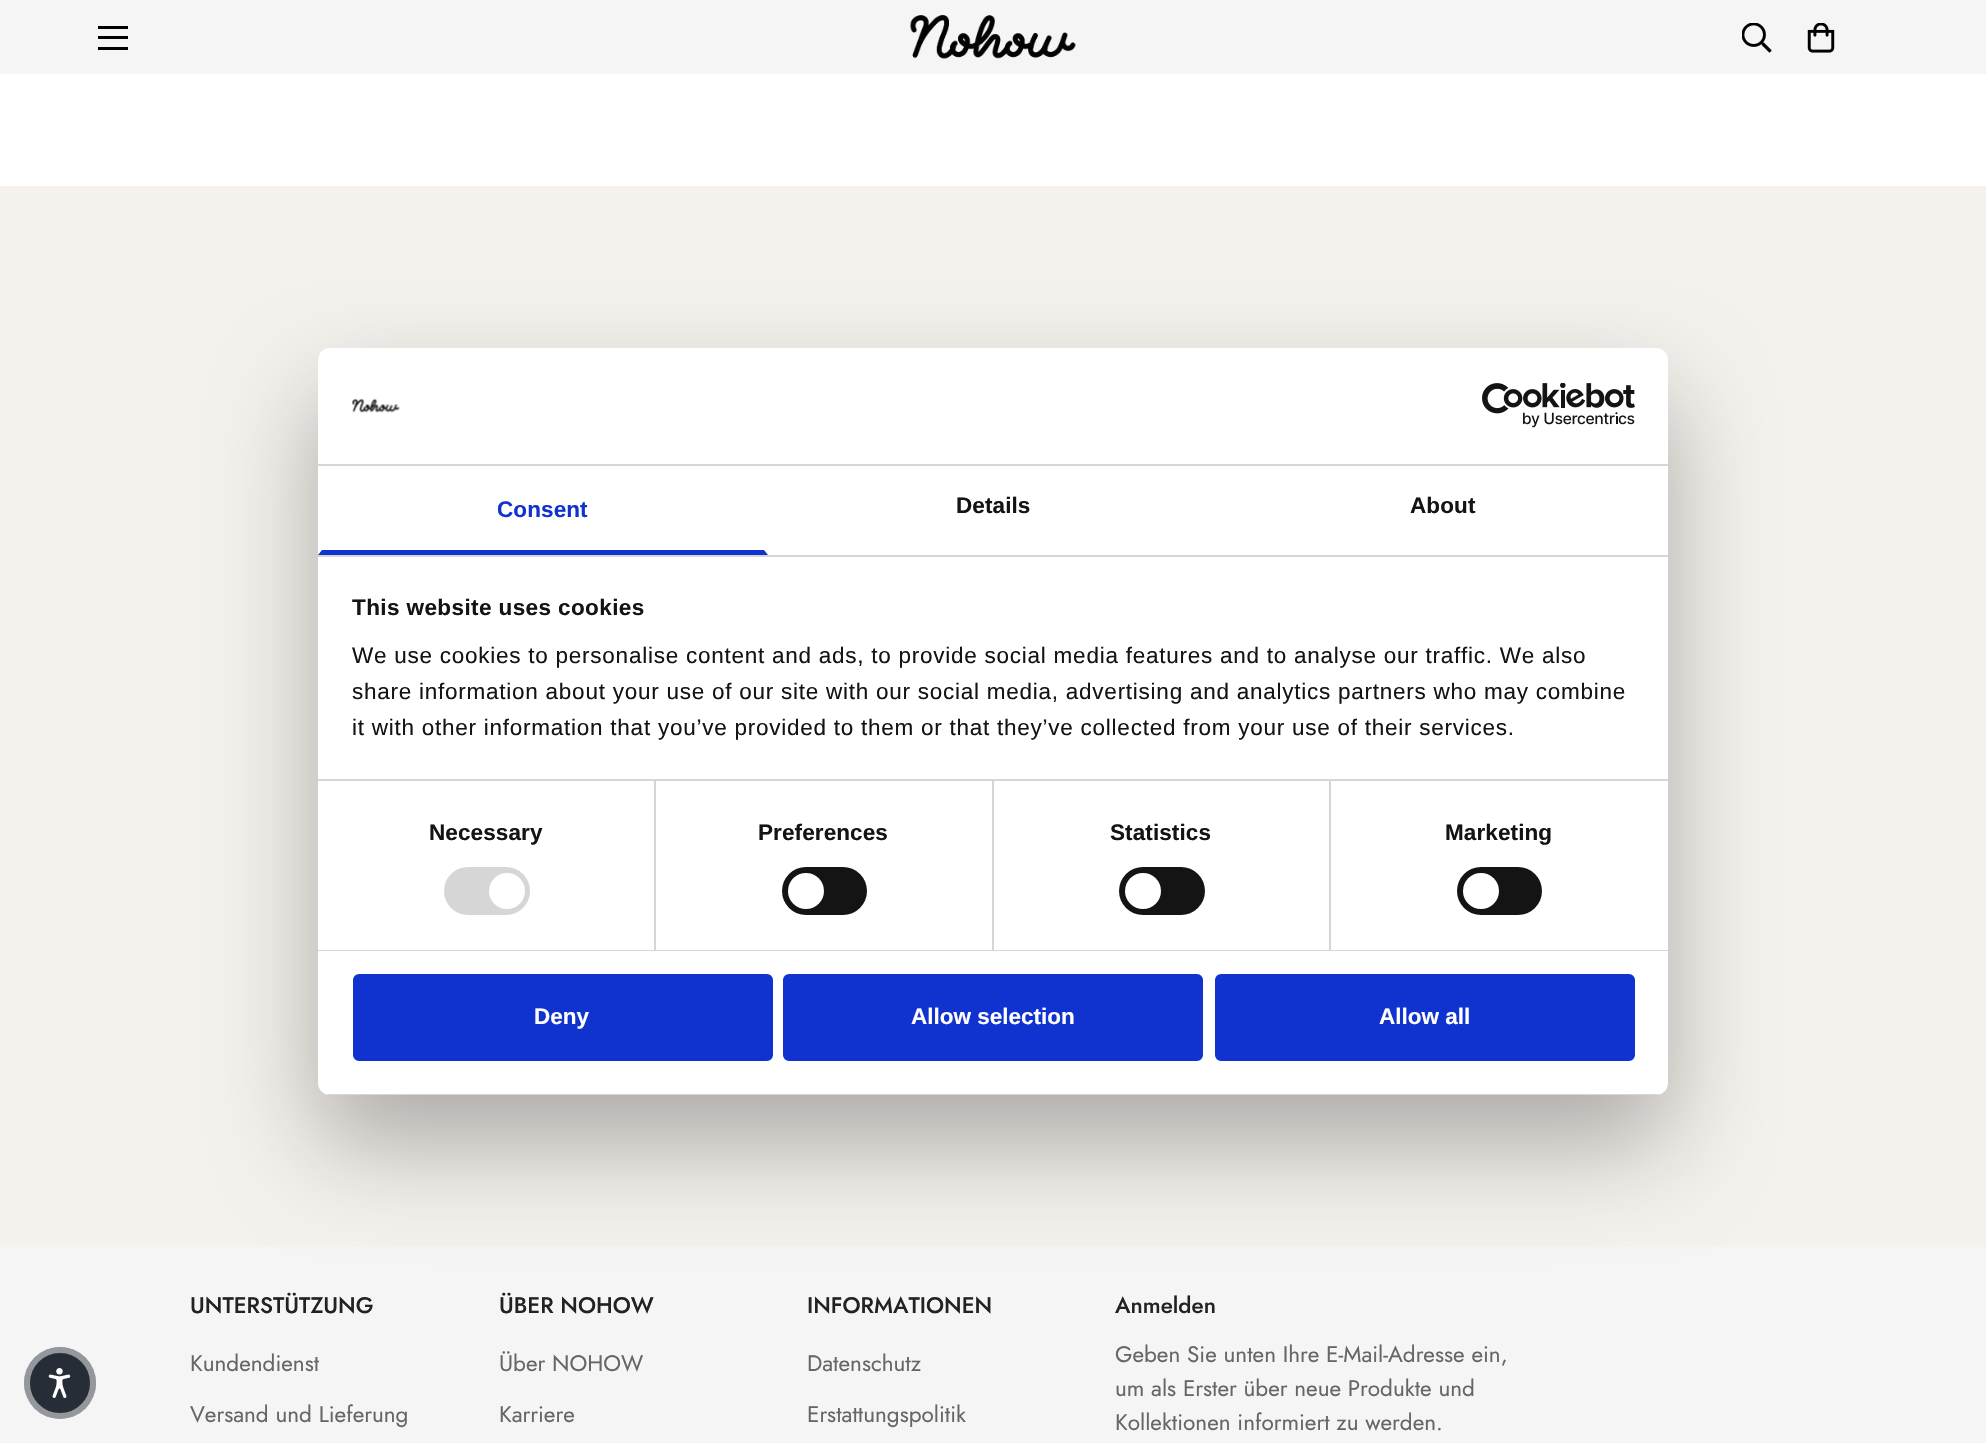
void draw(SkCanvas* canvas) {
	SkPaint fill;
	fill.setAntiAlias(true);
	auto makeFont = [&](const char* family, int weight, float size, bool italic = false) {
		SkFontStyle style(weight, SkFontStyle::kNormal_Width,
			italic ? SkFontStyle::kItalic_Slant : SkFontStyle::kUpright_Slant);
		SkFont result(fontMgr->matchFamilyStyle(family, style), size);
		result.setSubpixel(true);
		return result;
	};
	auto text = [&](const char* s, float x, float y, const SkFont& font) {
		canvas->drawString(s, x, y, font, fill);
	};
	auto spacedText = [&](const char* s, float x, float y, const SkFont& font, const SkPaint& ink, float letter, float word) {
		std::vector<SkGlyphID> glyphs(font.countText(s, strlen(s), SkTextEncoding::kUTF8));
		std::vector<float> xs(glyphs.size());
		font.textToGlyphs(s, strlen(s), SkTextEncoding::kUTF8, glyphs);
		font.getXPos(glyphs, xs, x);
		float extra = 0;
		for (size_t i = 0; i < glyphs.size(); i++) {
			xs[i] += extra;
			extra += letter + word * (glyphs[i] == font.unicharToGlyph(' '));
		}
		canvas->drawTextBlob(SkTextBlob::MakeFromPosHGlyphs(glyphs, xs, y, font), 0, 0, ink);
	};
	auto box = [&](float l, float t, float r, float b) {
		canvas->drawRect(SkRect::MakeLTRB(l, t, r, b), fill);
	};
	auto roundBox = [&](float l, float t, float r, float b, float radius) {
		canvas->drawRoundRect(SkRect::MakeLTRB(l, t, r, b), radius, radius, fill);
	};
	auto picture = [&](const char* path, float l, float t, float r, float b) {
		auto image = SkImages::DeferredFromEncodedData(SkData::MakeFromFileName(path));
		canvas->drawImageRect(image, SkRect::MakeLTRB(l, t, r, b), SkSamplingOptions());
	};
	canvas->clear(0xFFFFFFFF);
	fill.setColor(0xFFF5F5F5);
	box(0, 0, 1986, 74);
	fill.setColor(0xFF000000);
	box(98, 36, 128, 39);
	box(98, 26, 128, 29);
	box(98, 47, 128, 50);
	picture("image0.png", 910, 15, 1076, 59);
	picture("image1.png", 1742, 23, 1772, 53);
	picture("image2.png", 1807, 23, 1835, 53);
	fill.setColor(0xFFF5F1ED);
	box(0, 186, 1986, 1247);
	fill.setColor(0xFFF5F5F5);
	box(0, 1247, 1986, 1443);
	fill.setColor(0x4D000000);
	fill.setMaskFilter(SkMaskFilter::MakeBlur(kNormal_SkBlurStyle, 51));
	canvas->drawRoundRect(SkRect::MakeLTRB(318, 396, 1668, 1143), 12, 12, fill);
	fill.setMaskFilter(nullptr);
	fill.setColor(0xFFFFFFFF);
	roundBox(318, 348, 1668, 1095, 12);
	fill.setColor(0xFFD6D6D6);
	box(318, 464, 1668, 466);
	picture("image3.png", 352, 398, 400, 413);
	picture("image4.png", 1482, 383, 1635, 428);
	box(318, 555, 1668, 557);
	fill.setColor(0xFF1032CF);
	canvas->drawPath(SkPathBuilder().moveTo(768, 555).lineTo(318, 555).lineTo(322, 550).lineTo(764, 550).close().detach(), fill);
	fill.setColor(0xFFD6D6D6);
	box(654, 780, 656, 950);
	box(992, 780, 994, 950);
	box(1329, 780, 1331, 950);
	box(318, 779, 1668, 781);
	box(318, 950, 1668, 951);
	roundBox(444, 867, 530, 915, 24);
	fill.setColor(0xFFFFFFFF);
	canvas->drawCircle(507, 891, 18, fill);
	fill.setColor(0xFF141414);
	roundBox(782, 867, 867, 915, 24);
	fill.setColor(0xFFFFFFFF);
	canvas->drawCircle(806, 891, 18, fill);
	fill.setColor(0xFF141414);
	roundBox(1119, 867, 1205, 915, 24);
	fill.setColor(0xFFFFFFFF);
	canvas->drawCircle(1143, 891, 18, fill);
	fill.setColor(0xFF141414);
	roundBox(1457, 867, 1542, 915, 24);
	fill.setColor(0xFFFFFFFF);
	canvas->drawCircle(1481, 891, 18, fill);
	canvas->save();
	canvas->clipPath(SkPathBuilder().moveTo(330, 348).lineTo(1656, 348).cubicTo(1662.5f, 348, 1668, 353.5f, 1668, 360).lineTo(1668, 1083).cubicTo(1668, 1089.5f, 1662.5f, 1095, 1656, 1095).lineTo(330, 1095).cubicTo(323.5f, 1095, 318, 1089.5f, 318, 1083).lineTo(318, 360).cubicTo(318, 353.5f, 323.5f, 348, 330, 348).close().detach(), true);
	fill.setColor(0xFFD6D6D6);
	box(318, 1094, 1668, 1095);
	canvas->restore();
	fill.setColor(0xFF1032CF);
	canvas->drawRoundRect(SkRect::MakeLTRB(354.5f, 975.5f, 771.5f, 1059.5f), 4.5f, 4.5f, fill);
	fill.setStyle(SkPaint::kStroke_Style);
	fill.setStrokeWidth(3);
	canvas->drawRoundRect(SkRect::MakeLTRB(354.5f, 975.5f, 771.5f, 1059.5f), 4.5f, 4.5f, fill);
	fill.setStyle(SkPaint::kFill_Style);
	canvas->drawRoundRect(SkRect::MakeLTRB(784.5f, 975.5f, 1201.5f, 1059.5f), 4.5f, 4.5f, fill);
	fill.setStyle(SkPaint::kStroke_Style);
	canvas->drawRoundRect(SkRect::MakeLTRB(784.5f, 975.5f, 1201.5f, 1059.5f), 4.5f, 4.5f, fill);
	fill.setStyle(SkPaint::kFill_Style);
	canvas->drawRoundRect(SkRect::MakeLTRB(1216.5f, 975.5f, 1633.5f, 1059.5f), 4.5f, 4.5f, fill);
	fill.setStyle(SkPaint::kStroke_Style);
	canvas->drawRoundRect(SkRect::MakeLTRB(1216.5f, 975.5f, 1633.5f, 1059.5f), 4.5f, 4.5f, fill);
	fill.setStyle(SkPaint::kFill_Style);
	fill.setColor(0xFF272D36);
	canvas->drawCircle(60, 1383, 36, fill);
	fill.setStyle(SkPaint::kStroke_Style);
	fill.setStrokeWidth(6);
	fill.setColor(0x80FFFFFF);
	canvas->drawCircle(60, 1383, 33, fill);
	picture("image5.png", 48, 1368, 71, 1398);
	auto font1 = makeFont("Liberation Sans", 700, 22.5f);
	fill.setStyle(SkPaint::kFill_Style);
	fill.setColor(0xFF1032CF);
	spacedText("Consent", 497, 517, font1, fill, 0.1f, 0);
	fill.setColor(0xFF141414);
	spacedText("Details", 956, 513, font1, fill, 0.1f, 0);
	spacedText("About", 1410, 513, font1, fill, 0.1f, 0);
	spacedText("This website uses cookies", 352, 615, font1, fill, 0.4f, 0);
	auto font2 = makeFont("Liberation Sans", 400, 22.5f);
	spacedText("We use cookies to personalise content and ads, to provide social media features and to analyse our traffic. We also", 352, 663, font2, fill, 0.75f, 0);
	spacedText("share information about your use of our site with our social media, advertising and analytics partners who may combine", 352, 699, font2, fill, 0.75f, 0);
	spacedText("it with other information that you’ve provided to them or that they’ve collected from your use of their services.", 352, 735, font2, fill, 0.75f, 0);
	spacedText("Necessary", 429, 840, font1, fill, 0.1f, 0);
	spacedText("Preferences", 758, 840, font1, fill, 0.1f, 0);
	spacedText("Statistics", 1110, 840, font1, fill, 0.1f, 0);
	spacedText("Marketing", 1445, 840, font1, fill, 0.1f, 0);
	fill.setColor(0xFFFFFFFF);
	text("Deny", 534, 1024, font1);
	text("Allow selection", 911, 1024, font1);
	text("Allow all", 1379, 1024, font1);
	auto font3 = makeFont("Jost", 500, 22.5f);
	fill.setColor(0xFF222222);
	text("UNTERSTÜTZUNG", 190, 1313, font3);
	auto font4 = makeFont("Jost", 400, 22.5f);
	fill.setColor(0xFF666666);
	text("Kundendienst", 190, 1371, font4);
	text("Versand und Lieferung", 190, 1422, font4);
	fill.setColor(0xFF222222);
	text("ÜBER NOHOW", 499, 1313, font3);
	fill.setColor(0xFF666666);
	text("Über NOHOW", 499, 1371, font4);
	text("Karriere", 499, 1422, font4);
	fill.setColor(0xFF222222);
	text("INFORMATIONEN", 807, 1313, font3);
	fill.setColor(0xFF666666);
	text("Datenschutz", 807, 1371, font4);
	text("Erstattungspolitik", 807, 1422, font4);
	fill.setColor(0xFF222222);
	text("Anmelden", 1115, 1313, font3);
	fill.setColor(0xFF666666);
	text("Geben Sie unten Ihre E-Mail-Adresse ein,", 1115, 1362, font4);
	text("um als Erster über neue Produkte und", 1115, 1396, font4);
	text("Kollektionen informiert zu werden.", 1115, 1430, font4);
}
